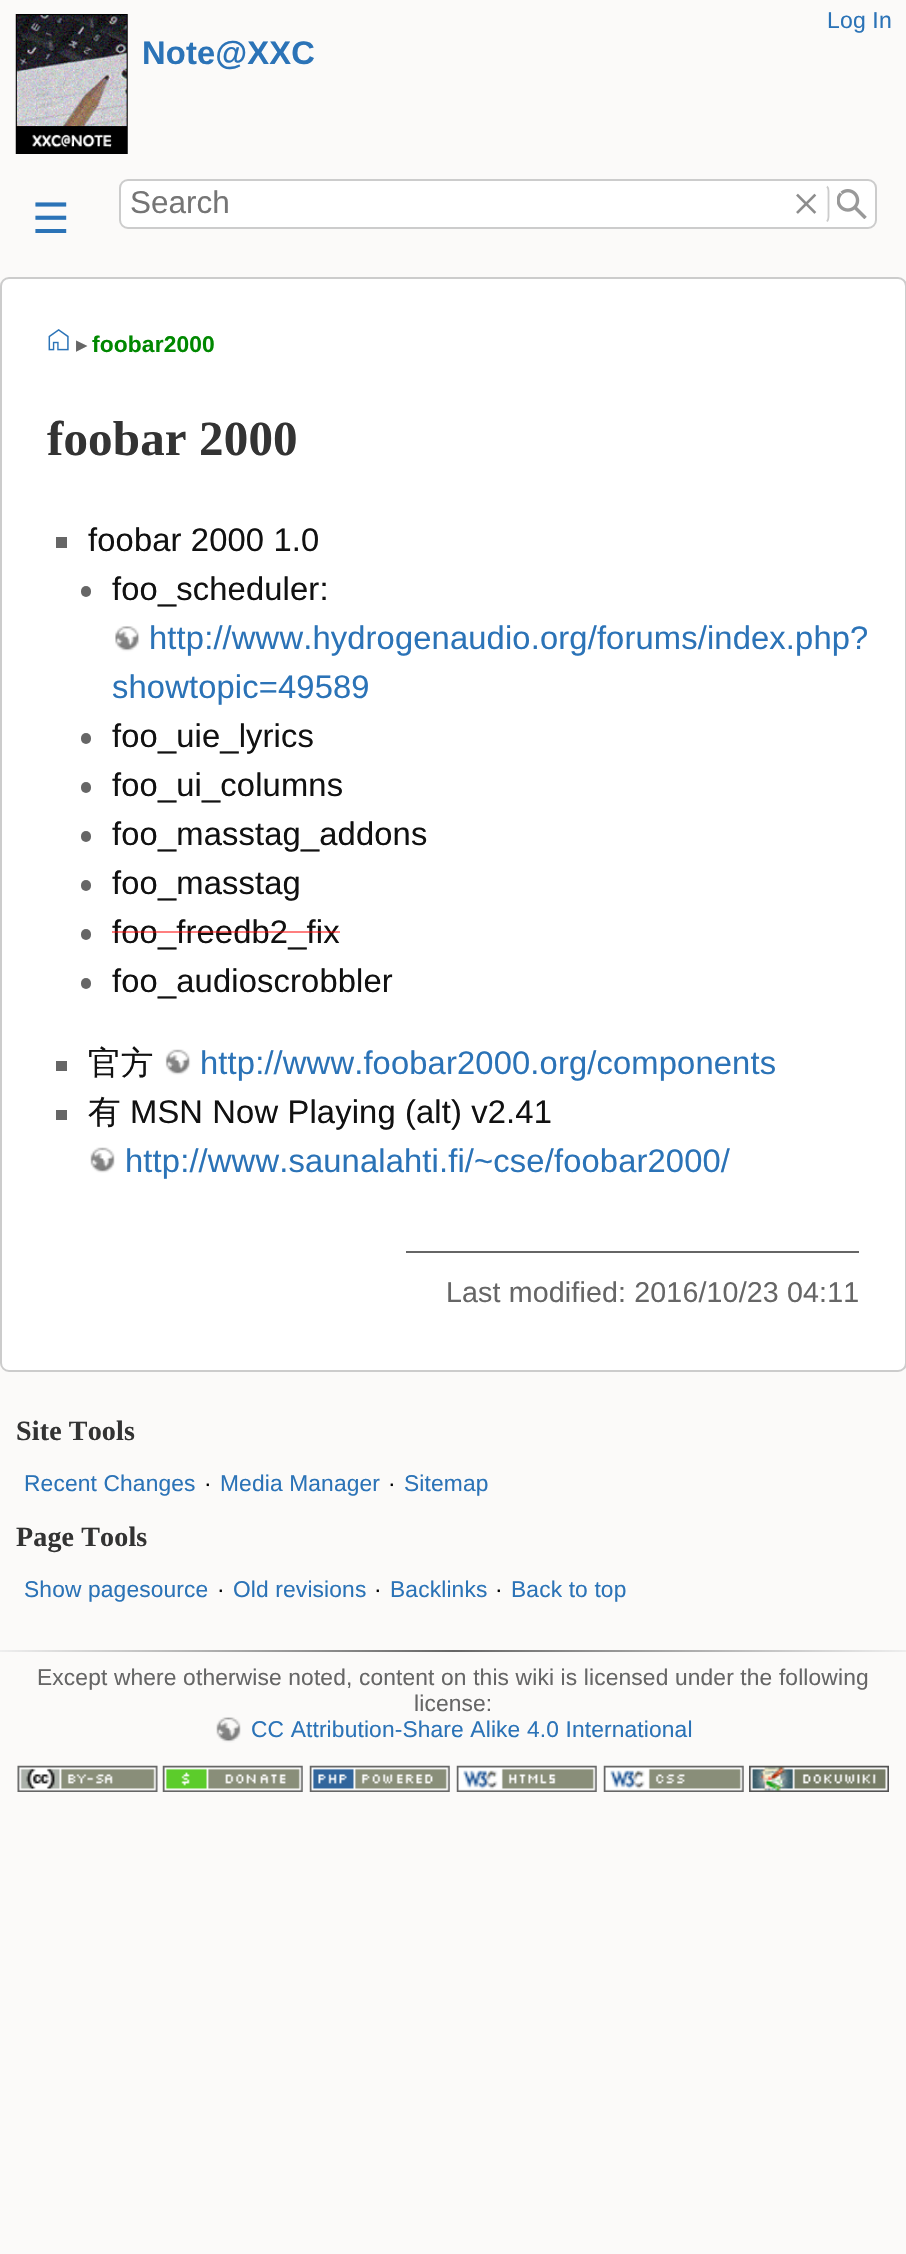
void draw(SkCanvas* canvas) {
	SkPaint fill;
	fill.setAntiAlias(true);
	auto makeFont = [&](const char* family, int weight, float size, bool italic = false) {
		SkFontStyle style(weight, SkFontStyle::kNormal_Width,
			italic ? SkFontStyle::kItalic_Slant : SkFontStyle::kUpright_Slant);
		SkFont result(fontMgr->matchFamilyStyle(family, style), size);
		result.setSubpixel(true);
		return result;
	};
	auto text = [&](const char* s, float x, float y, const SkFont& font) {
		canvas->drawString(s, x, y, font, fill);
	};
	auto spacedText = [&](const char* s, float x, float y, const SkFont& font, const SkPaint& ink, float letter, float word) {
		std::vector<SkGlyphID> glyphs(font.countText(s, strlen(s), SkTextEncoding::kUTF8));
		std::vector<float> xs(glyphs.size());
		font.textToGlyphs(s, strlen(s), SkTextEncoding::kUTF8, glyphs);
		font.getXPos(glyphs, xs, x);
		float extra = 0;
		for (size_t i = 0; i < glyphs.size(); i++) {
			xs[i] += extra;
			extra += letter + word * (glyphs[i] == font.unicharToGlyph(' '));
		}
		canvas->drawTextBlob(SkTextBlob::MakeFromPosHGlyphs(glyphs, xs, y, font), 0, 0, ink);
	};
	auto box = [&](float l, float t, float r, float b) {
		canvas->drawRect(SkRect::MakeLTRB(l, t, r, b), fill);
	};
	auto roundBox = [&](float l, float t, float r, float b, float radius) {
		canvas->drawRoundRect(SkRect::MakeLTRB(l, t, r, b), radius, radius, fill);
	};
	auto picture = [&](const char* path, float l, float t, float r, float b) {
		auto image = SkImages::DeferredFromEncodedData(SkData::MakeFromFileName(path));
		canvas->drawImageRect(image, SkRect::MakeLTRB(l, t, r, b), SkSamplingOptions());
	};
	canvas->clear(0xFFFBFAF9);
	picture("image0.png", 15, 14, 128, 154);
	fill.setColor(0xFFFFFFFF);
	canvas->drawRoundRect(SkRect::MakeLTRB(120, 180, 876, 228), 8, 8, fill);
	fill.setStyle(SkPaint::kStroke_Style);
	fill.setStrokeWidth(2);
	fill.setColor(0xFFCCCCCC);
	canvas->drawRoundRect(SkRect::MakeLTRB(120, 180, 876, 228), 8, 8, fill);
	picture("image1.png", 796, 193, 817, 214);
	fill.setStrokeWidth(1.8f);
	canvas->drawPath(SkPathBuilder().moveTo(827, 186.5f).cubicTo(828, 187.5f, 828.5f, 189, 828.5f, 191).lineTo(828.5f, 217).cubicTo(828.5f, 218.5f, 828, 220, 827, 221.5f).detach(), fill);
	picture("image2.png", 837, 189, 867, 219);
	fill.setStyle(SkPaint::kFill_Style);
	fill.setColor(0xFFFFFFFF);
	canvas->drawRoundRect(SkRect::MakeLTRB(1, 278, 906, 1371), 8, 8, fill);
	fill.setStyle(SkPaint::kStroke_Style);
	fill.setStrokeWidth(2);
	fill.setColor(0xFFCCCCCC);
	canvas->drawRoundRect(SkRect::MakeLTRB(1, 278, 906, 1371), 8, 8, fill);
	picture("image3.png", 48, 329, 69, 351);
	fill.setStyle(SkPaint::kFill_Style);
	fill.setColor(0xFF666666);
	box(56, 537, 67, 548);
	roundBox(81, 586, 91, 597, 5);
	picture("image4.png", 115, 626, 140, 652);
	roundBox(81, 733, 91, 744, 5);
	roundBox(81, 782, 91, 793, 5);
	roundBox(81, 831, 91, 842, 5);
	roundBox(81, 880, 91, 891, 5);
	roundBox(81, 929, 91, 940, 5);
	roundBox(81, 978, 91, 989, 5);
	box(56, 1061, 67, 1071);
	picture("image5.png", 165, 1049, 191, 1075);
	box(56, 1110, 67, 1120);
	picture("image6.png", 90, 1147, 115, 1173);
	box(406, 1251, 859, 1253);
	{
		const SkColor colors[] = {0xFFEEEEEE, 0xFF666666, 0xFFEEEEEE};
		const float stops[] = {0, 0.5f, 1};
		const SkPoint ends[] = {{0, 1651}, {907, 1651}};
		fill.setShader(SkGradientShader::MakeLinear(ends, colors, stops, 3, SkTileMode::kClamp));
		fill.setAlpha(255);
	}
	box(0, 1650, 906, 1652);
	picture("image7.png", 216, 1717, 241, 1743);
	picture("image8.png", 17, 1765, 158, 1792);
	picture("image9.png", 162, 1765, 303, 1792);
	picture("image10.png", 309, 1765, 450, 1792);
	picture("image11.png", 456, 1765, 597, 1792);
	picture("image12.png", 603, 1765, 744, 1792);
	picture("image13.png", 749, 1765, 889, 1792);
	auto font1 = makeFont("Liberation Sans", 400, 23);
	fill.setShader(nullptr);
	fill.setColor(0xFF2B73B7);
	spacedText("Log In", 827, 28, font1, fill, 0.15f, 0);
	auto font2 = makeFont("Liberation Sans", 700, 32.7f);
	spacedText("Note@XXC", 142, 64, font2, fill, 0.15f, 0);
	auto font3 = makeFont("Liberation Sans", 400, 31.5f);
	fill.setColor(0xFF757575);
	text("Search", 130, 213, font3);
	auto font4 = makeFont("DejaVu Sans", 400, 42);
	fill.setColor(0xFF2B73B7);
	text("☰", 32, 233, font4);
	auto font5 = makeFont("DejaVu Sans", 400, 22.75f);
	fill.setColor(0xFF666666);
	spacedText("▸", 76, 352, font5, fill, 0.15f, 0);
	auto font6 = makeFont("Liberation Sans", 700, 22.75f);
	fill.setColor(0xFF008800);
	spacedText("foobar2000", 92, 352, font6, fill, 0.15f, 0);
	auto font7 = makeFont("Liberation Serif", 700, 49);
	fill.setColor(0xFF333333);
	spacedText("foobar 2000", 47, 455, font7, fill, 0.15f, 0);
	auto font8 = makeFont("Liberation Sans", 400, 32.7f);
	fill.setColor(0xFF111111);
	spacedText("foobar 2000 1.0", 88, 551, font8, fill, 0.15f, 0);
	spacedText("foo_scheduler:", 112, 600, font8, fill, 0.15f, 0);
	fill.setColor(0xFF2B73B7);
	spacedText("http://www.hydrogenaudio.org/forums/index.php?", 149, 649, font8, fill, 0.15f, 0);
	spacedText("showtopic=49589", 112, 698, font8, fill, 0.15f, 0);
	fill.setColor(0xFF111111);
	spacedText("foo_uie_lyrics", 112, 747, font8, fill, 0.15f, 0);
	spacedText("foo_ui_columns", 112, 796, font8, fill, 0.15f, 0);
	spacedText("foo_masstag_addons", 112, 845, font8, fill, 0.15f, 0);
	spacedText("foo_masstag", 112, 894, font8, fill, 0.15f, 0);
	spacedText("foo_freedb2_fix", 112, 943, font8, fill, 0.15f, 0);
	fill.setColor(0x80FF0000);
	box(112, 931, 340, 933);
	fill.setColor(0xFF111111);
	spacedText("foo_audioscrobbler", 112, 992, font8, fill, 0.15f, 0);
	auto font9 = makeFont("WenQuanYi Zen Hei", 500, 32.7f);
	spacedText("官方", 88, 1074, font9, fill, 0.15f, 0);
	fill.setColor(0xFF2B73B7);
	spacedText("http://www.foobar2000.org/components", 200, 1074, font8, fill, 0.15f, 0);
	fill.setColor(0xFF111111);
	spacedText("有", 88, 1123, font9, fill, 0.15f, 0);
	spacedText("MSN Now Playing (alt) v2.41", 130, 1123, font8, fill, 0.15f, 0);
	fill.setColor(0xFF2B73B7);
	spacedText("http://www.saunalahti.fi/~cse/foobar2000/", 125, 1172, font8, fill, 0.15f, 0);
	auto font10 = makeFont("Liberation Sans", 400, 28.6f);
	fill.setColor(0xFF666666);
	spacedText("Last modified: 2016/10/23 04:11", 446, 1302, font10, fill, 0.15f, 0);
	auto font11 = makeFont("Liberation Serif", 700, 28);
	fill.setColor(0xFF333333);
	spacedText("Site Tools", 16, 1440, font11, fill, 0.15f, 0);
	auto font12 = makeFont("Liberation Sans", 400, 22.75f);
	fill.setColor(0xFF2B73B7);
	spacedText("Recent Changes", 24, 1491, font12, fill, 0.15f, 0);
	fill.setColor(0xFF000000);
	spacedText("·", 204, 1491, font12, fill, 0.15f, 0);
	fill.setColor(0xFF2B73B7);
	spacedText("Media Manager", 220, 1491, font12, fill, 0.15f, 0);
	fill.setColor(0xFF000000);
	spacedText("·", 388, 1491, font12, fill, 0.15f, 0);
	fill.setColor(0xFF2B73B7);
	spacedText("Sitemap", 404, 1491, font12, fill, 0.15f, 0);
	fill.setColor(0xFF333333);
	spacedText("Page Tools", 16, 1546, font11, fill, 0.15f, 0);
	fill.setColor(0xFF2B73B7);
	spacedText("Show pagesource", 24, 1597, font12, fill, 0.15f, 0);
	fill.setColor(0xFF000000);
	spacedText("·", 217, 1597, font12, fill, 0.15f, 0);
	fill.setColor(0xFF2B73B7);
	spacedText("Old revisions", 233, 1597, font12, fill, 0.15f, 0);
	fill.setColor(0xFF000000);
	spacedText("·", 374, 1597, font12, fill, 0.15f, 0);
	fill.setColor(0xFF2B73B7);
	spacedText("Backlinks", 390, 1597, font12, fill, 0.15f, 0);
	fill.setColor(0xFF000000);
	spacedText("·", 495, 1597, font12, fill, 0.15f, 0);
	fill.setColor(0xFF2B73B7);
	spacedText("Back to top", 511, 1597, font12, fill, 0.15f, 0);
	fill.setColor(0xFF666666);
	spacedText("Except where otherwise noted, content on this wiki is licensed under the following", 37, 1685, font12, fill, 0.15f, 0);
	spacedText("license:", 414, 1711, font12, fill, 0.15f, 0);
	fill.setColor(0xFF2B73B7);
	spacedText("CC Attribution-Share Alike 4.0 International", 251, 1737, font12, fill, 0.15f, 0);
}
